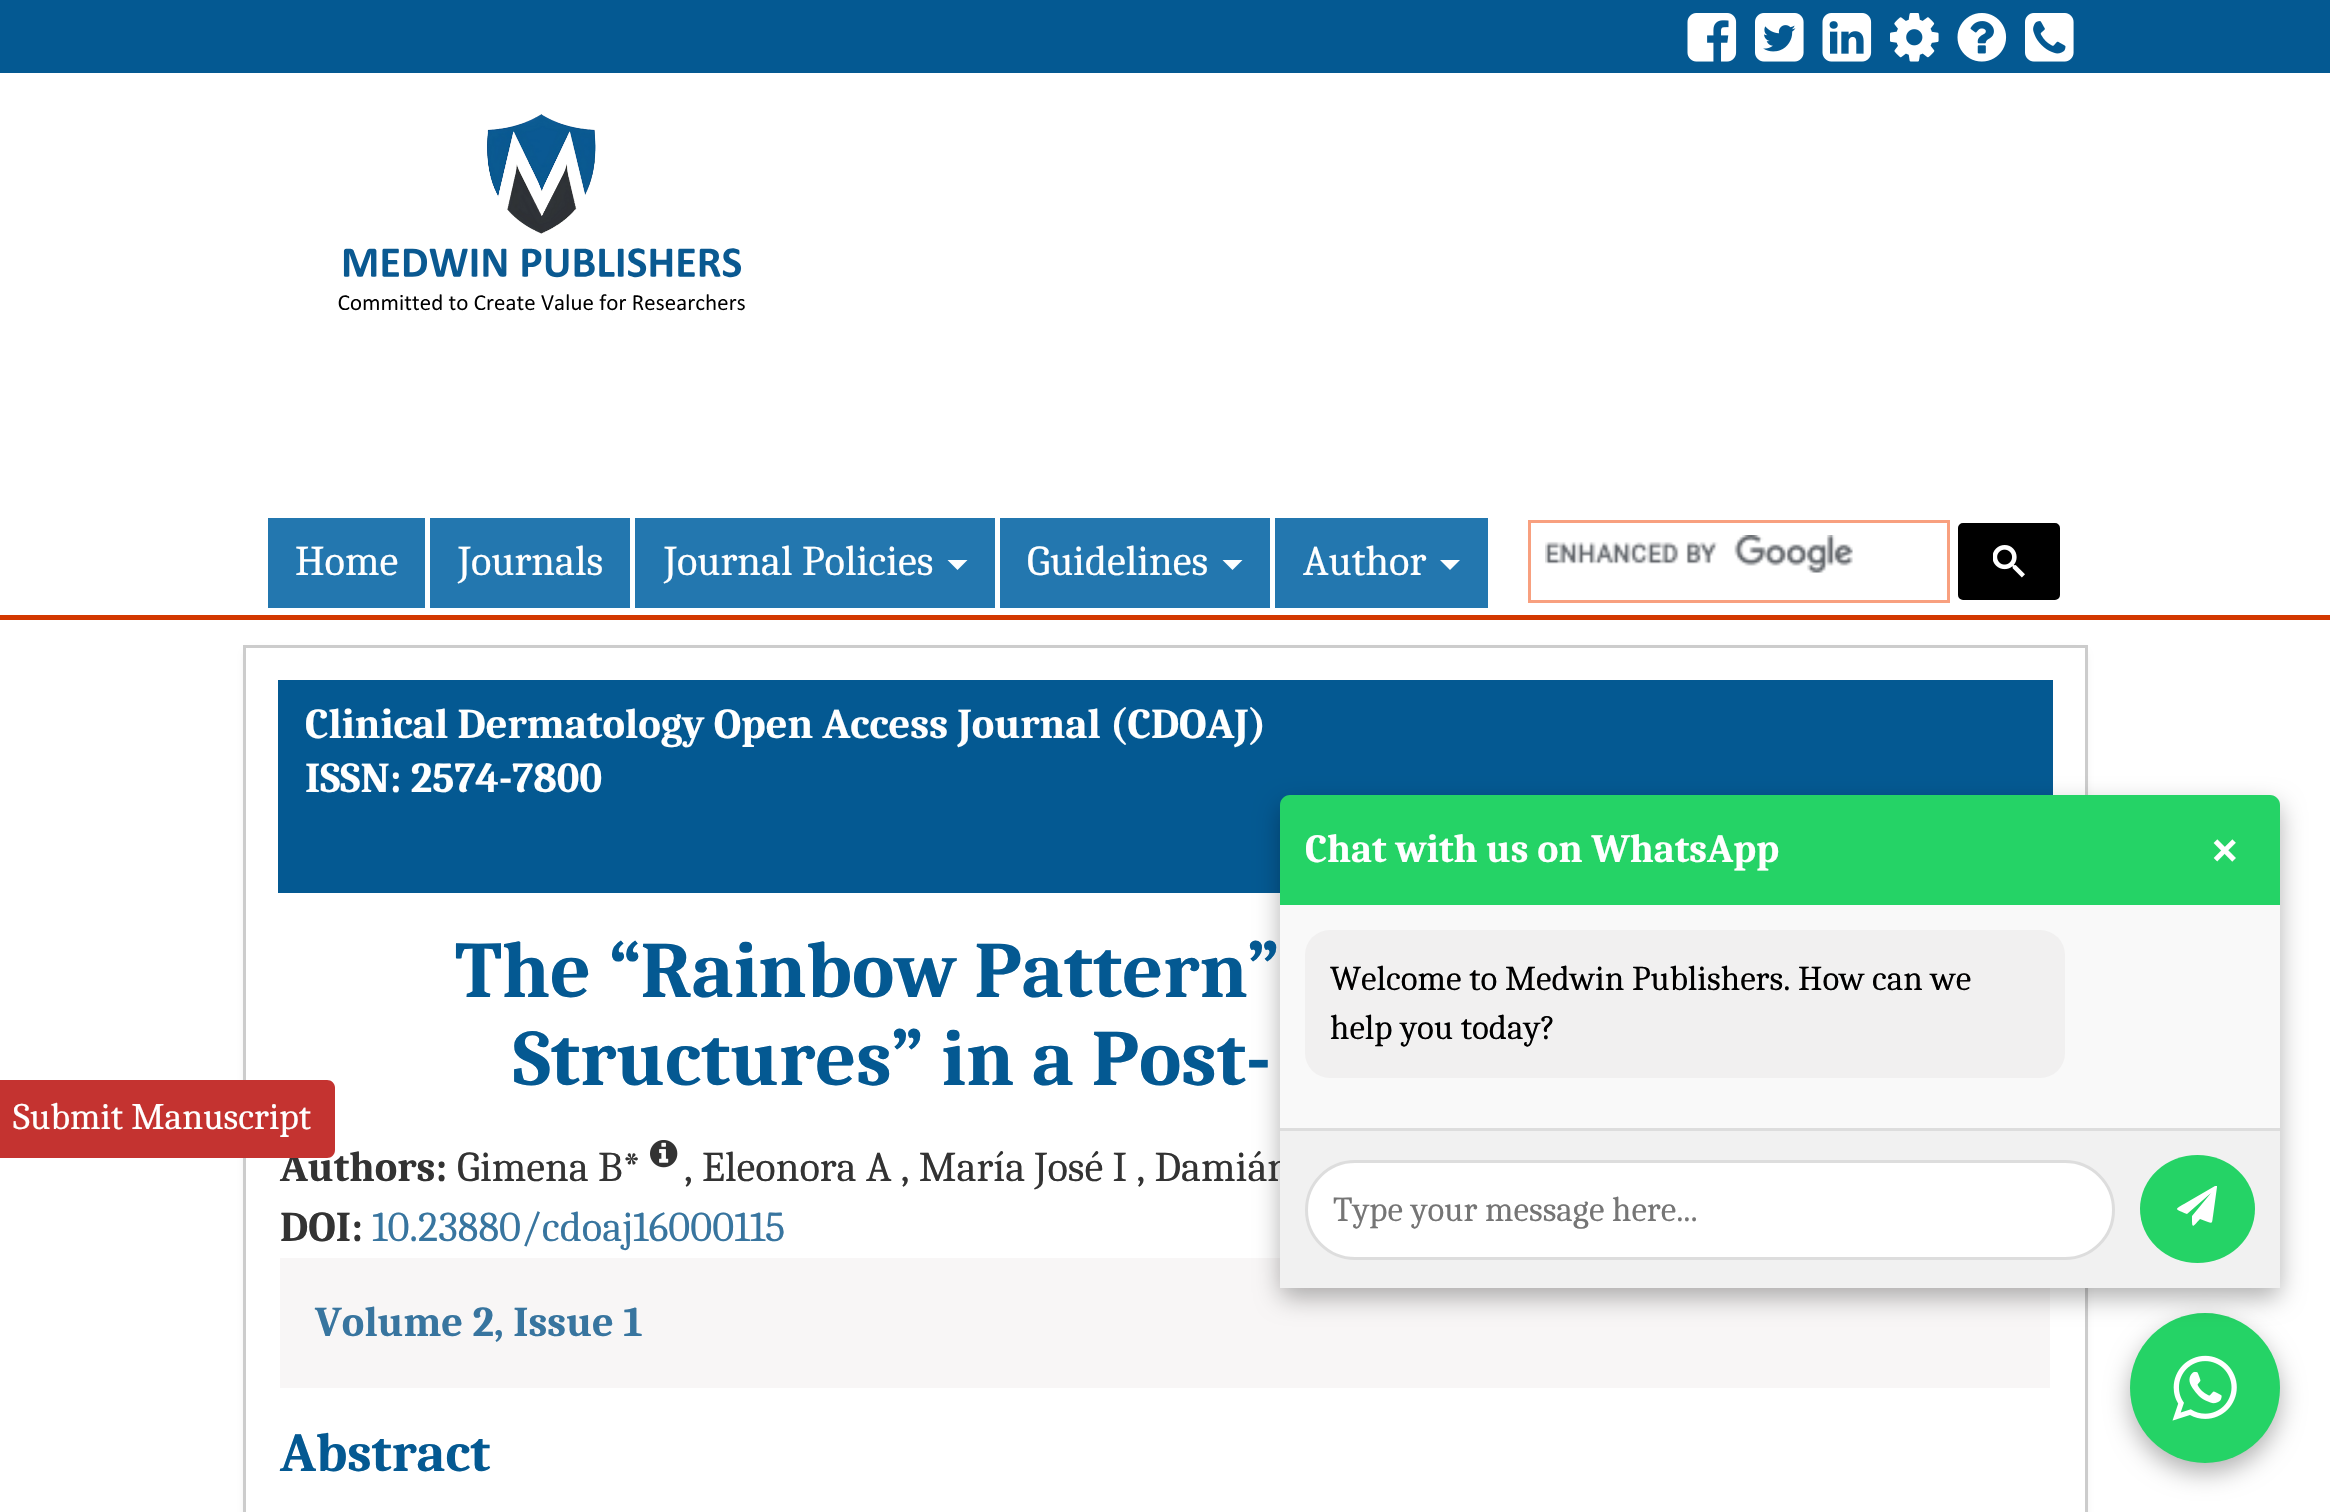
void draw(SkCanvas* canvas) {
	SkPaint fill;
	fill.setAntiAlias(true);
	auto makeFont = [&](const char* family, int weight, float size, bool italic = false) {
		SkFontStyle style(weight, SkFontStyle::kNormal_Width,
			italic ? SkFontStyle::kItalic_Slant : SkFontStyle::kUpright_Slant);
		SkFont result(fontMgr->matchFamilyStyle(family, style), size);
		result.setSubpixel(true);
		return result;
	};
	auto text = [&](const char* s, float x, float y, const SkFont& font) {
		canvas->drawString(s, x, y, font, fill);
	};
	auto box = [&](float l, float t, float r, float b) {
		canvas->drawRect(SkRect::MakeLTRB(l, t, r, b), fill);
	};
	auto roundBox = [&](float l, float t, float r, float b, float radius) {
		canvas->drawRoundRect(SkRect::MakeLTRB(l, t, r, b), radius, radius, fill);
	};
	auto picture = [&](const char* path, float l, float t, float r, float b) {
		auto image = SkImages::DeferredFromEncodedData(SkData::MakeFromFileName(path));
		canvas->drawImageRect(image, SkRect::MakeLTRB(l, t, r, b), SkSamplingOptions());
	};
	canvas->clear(0xFFFFFFFF);
	fill.setColor(0xFF045992);
	box(0, 0, 2330, 73);
	picture("image0.png", 1687, 13, 1737, 62);
	picture("image1.png", 1755, 13, 1804, 62);
	picture("image2.png", 1822, 13, 1872, 62);
	picture("image3.png", 1890, 13, 1939, 62);
	picture("image4.png", 1957, 13, 2007, 62);
	picture("image5.png", 2025, 13, 2074, 62);
	fill.setColor(0xFFD33800);
	box(0, 615, 2330, 620);
	picture("image6.png", 338, 114, 745, 311);
	fill.setColor(0xFF2377AF);
	box(268, 518, 425, 608);
	box(430, 518, 630, 608);
	box(635, 518, 995, 608);
	fill.setColor(0xFFFFFFFF);
	canvas->drawPath(SkPathBuilder().moveTo(947.5f, 560).lineTo(967.5f, 560).lineTo(957.5f, 570).close().detach(), fill);
	fill.setColor(0xFF2377AF);
	box(1000, 518, 1270, 608);
	fill.setColor(0xFFFFFFFF);
	canvas->drawPath(SkPathBuilder().moveTo(1222.5f, 560).lineTo(1242.5f, 560).lineTo(1232.5f, 570).close().detach(), fill);
	fill.setColor(0xFF2377AF);
	box(1275, 518, 1488, 608);
	fill.setColor(0xFFFFFFFF);
	canvas->drawPath(SkPathBuilder().moveTo(1440, 560).lineTo(1460, 560).lineTo(1450, 570).close().detach(), fill);
	fill.setStyle(SkPaint::kStroke_Style);
	fill.setStrokeWidth(3);
	fill.setColor(0xFFF8A07F);
	canvas->drawRect(SkRect::MakeLTRB(1529.5f, 521.5f, 1948.5f, 601.5f), fill);
	picture("image7.png", 1545, 535, 1853, 573);
	fill.setStyle(SkPaint::kFill_Style);
	fill.setColor(0xFF000000);
	canvas->drawRoundRect(SkRect::MakeLTRB(1959.5f, 524.5f, 2058.5f, 598.5f), 3.5f, 3.5f, fill);
	fill.setStyle(SkPaint::kStroke_Style);
	canvas->drawRoundRect(SkRect::MakeLTRB(1959.5f, 524.5f, 2058.5f, 598.5f), 3.5f, 3.5f, fill);
	picture("image8.png", 1993, 545, 2025, 578);
	fill.setStyle(SkPaint::kFill_Style);
	fill.setColor(0x0D000000);
	fill.setMaskFilter(SkMaskFilter::MakeBlur(kNormal_SkBlurStyle, 2.5f));
	canvas->drawRoundRect(SkRect::MakeLTRB(243, 648, 2088, 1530), 10, 10, fill);
	fill.setMaskFilter(nullptr);
	fill.setColor(0xFFFFFFFF);
	canvas->drawRect(SkRect::MakeLTRB(244.5f, 646.5f, 2086.5f, 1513.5f), fill);
	fill.setStyle(SkPaint::kStroke_Style);
	fill.setColor(0xFFCCCCCC);
	canvas->drawRect(SkRect::MakeLTRB(244.5f, 646.5f, 2086.5f, 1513.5f), fill);
	fill.setStyle(SkPaint::kFill_Style);
	fill.setColor(0xFF045992);
	box(278, 680, 2053, 893);
	picture("image9.png", 650, 1140, 678, 1168);
	fill.setColor(0xFFF8F6F6);
	box(280, 1258, 2050, 1388);
	fill.setColor(0x4D000000);
	fill.setMaskFilter(SkMaskFilter::MakeBlur(kNormal_SkBlurStyle, 12.5f));
	canvas->drawRoundRect(SkRect::MakeLTRB(2130, 1323, 2280, 1473), 75, 75, fill);
	fill.setMaskFilter(nullptr);
	fill.setColor(0xFF25D366);
	canvas->drawCircle(2205, 1388, 75, fill);
	fill.setColor(0x4D000000);
	fill.setMaskFilter(SkMaskFilter::MakeBlur(kNormal_SkBlurStyle, 12.5f));
	canvas->drawRoundRect(SkRect::MakeLTRB(1280, 805, 2280, 1298), 10, 10, fill);
	fill.setMaskFilter(nullptr);
	fill.setColor(0xFF25D366);
	canvas->drawPath(SkPathBuilder().moveTo(1290, 795).lineTo(2270, 795).cubicTo(2275.5f, 795, 2280, 799.5f, 2280, 805).lineTo(2280, 905).lineTo(1280, 905).lineTo(1280, 805).cubicTo(1280, 799.5f, 1284.5f, 795, 1290, 795).close().detach(), fill);
	fill.setColor(0xFFF9F9F9);
	box(1280, 905, 2280, 1128);
	fill.setColor(0xFFF1F0F0);
	roundBox(1305, 930, 2065, 1078, 25);
	fill.setColor(0xFFDDDDDD);
	box(1280, 1128, 2280, 1131);
	picture("image10.png", 2172, 1355, 2237, 1421);
	auto font1 = makeFont("Caladea", 400, 42.5f);
	fill.setColor(0xFFFFFFFF);
	text("Home", 295, 575, font1);
	text("Journals", 458, 575, font1);
	text("Journal Policies", 664, 575, font1);
	text("Guidelines", 1027, 575, font1);
	text("Author", 1303, 575, font1);
	auto font2 = makeFont("Caladea", 700, 42.5f);
	text("Clinical Dermatology Open Access Journal (CDOAJ)", 305, 738, font2);
	text("ISSN: 2574-7800", 305, 792, font2);
	auto font3 = makeFont("Caladea", 700, 80);
	fill.setColor(0xFF045992);
	text("The “Rainbow Pattern”", 455, 997, font3);
	text("Structures” in a Post-", 513, 1085, font3);
	fill.setColor(0xFF333333);
	text("Authors:", 280, 1181, font2);
	fill.setColor(0xFFC43330);
	canvas->drawPath(SkPathBuilder().moveTo(0, 1080).lineTo(327, 1080).cubicTo(331.5f, 1080, 335, 1083.5f, 335, 1088).lineTo(335, 1150).cubicTo(335, 1154.5f, 331.5f, 1158, 327, 1158).lineTo(0, 1158).close().detach(), fill);
	auto font4 = makeFont("Caladea", 400, 37.5f);
	fill.setColor(0xFFFFFFFF);
	text("Submit Manuscript", 13, 1129, font4);
	fill.setColor(0xFF333333);
	text("Gimena B*", 457, 1181, font1);
	text(", Eleonora A , María José I , Damián", 684, 1181, font1);
	text("DOI:", 280, 1241, font2);
	fill.setColor(0xFF38759F);
	text("10.23880/cdoaj16000115", 372, 1241, font1);
	text("Volume 2, Issue 1", 315, 1336, font2);
	auto font5 = makeFont("Caladea", 700, 55);
	fill.setColor(0xFF045992);
	text("Abstract", 280, 1471, font5);
	auto font6 = makeFont("Caladea", 700, 40);
	fill.setColor(0xFFFFFFFF);
	text("Chat with us on WhatsApp", 1305, 862, font6);
	auto font7 = makeFont("Caladea", 700, 50);
	text("×", 2210, 865, font7);
	auto font8 = makeFont("Caladea", 400, 35);
	fill.setColor(0xFF000000);
	text("Welcome to Medwin Publishers. How can we", 1330, 990, font8);
	text("help you today?", 1330, 1039, font8);
	fill.setColor(0xFFF1F1F1);
	box(1280, 1131, 2280, 1288);
	fill.setColor(0xFFFFFFFF);
	canvas->drawRoundRect(SkRect::MakeLTRB(1306.5f, 1161.5f, 2113.5f, 1258.5f), 48.5f, 48.5f, fill);
	fill.setStyle(SkPaint::kStroke_Style);
	fill.setColor(0xFFDDDDDD);
	canvas->drawRoundRect(SkRect::MakeLTRB(1306.5f, 1161.5f, 2113.5f, 1258.5f), 48.5f, 48.5f, fill);
	fill.setStyle(SkPaint::kFill_Style);
	fill.setColor(0xFF757575);
	text("Type your message here...", 1333, 1221, font8);
	fill.setColor(0xFF25D366);
	canvas->drawOval(SkRect::MakeLTRB(2140, 1155, 2255, 1263), fill);
	fill.setColor(0xFFFFFFFF);
	canvas->drawPath(SkPathBuilder().moveTo(2217, 1186).lineTo(2217, 1187).lineTo(2213, 1216).cubicTo(2212, 1222, 2213, 1224, 2208, 1222).lineTo(2200, 1219).cubicTo(2192, 1228, 2192, 1229, 2192, 1216).lineTo(2211, 1193).lineTo(2187, 1214).cubicTo(2176, 1209, 2173, 1210, 2184, 1204).lineTo(2215, 1186).close().detach(), fill);
}
